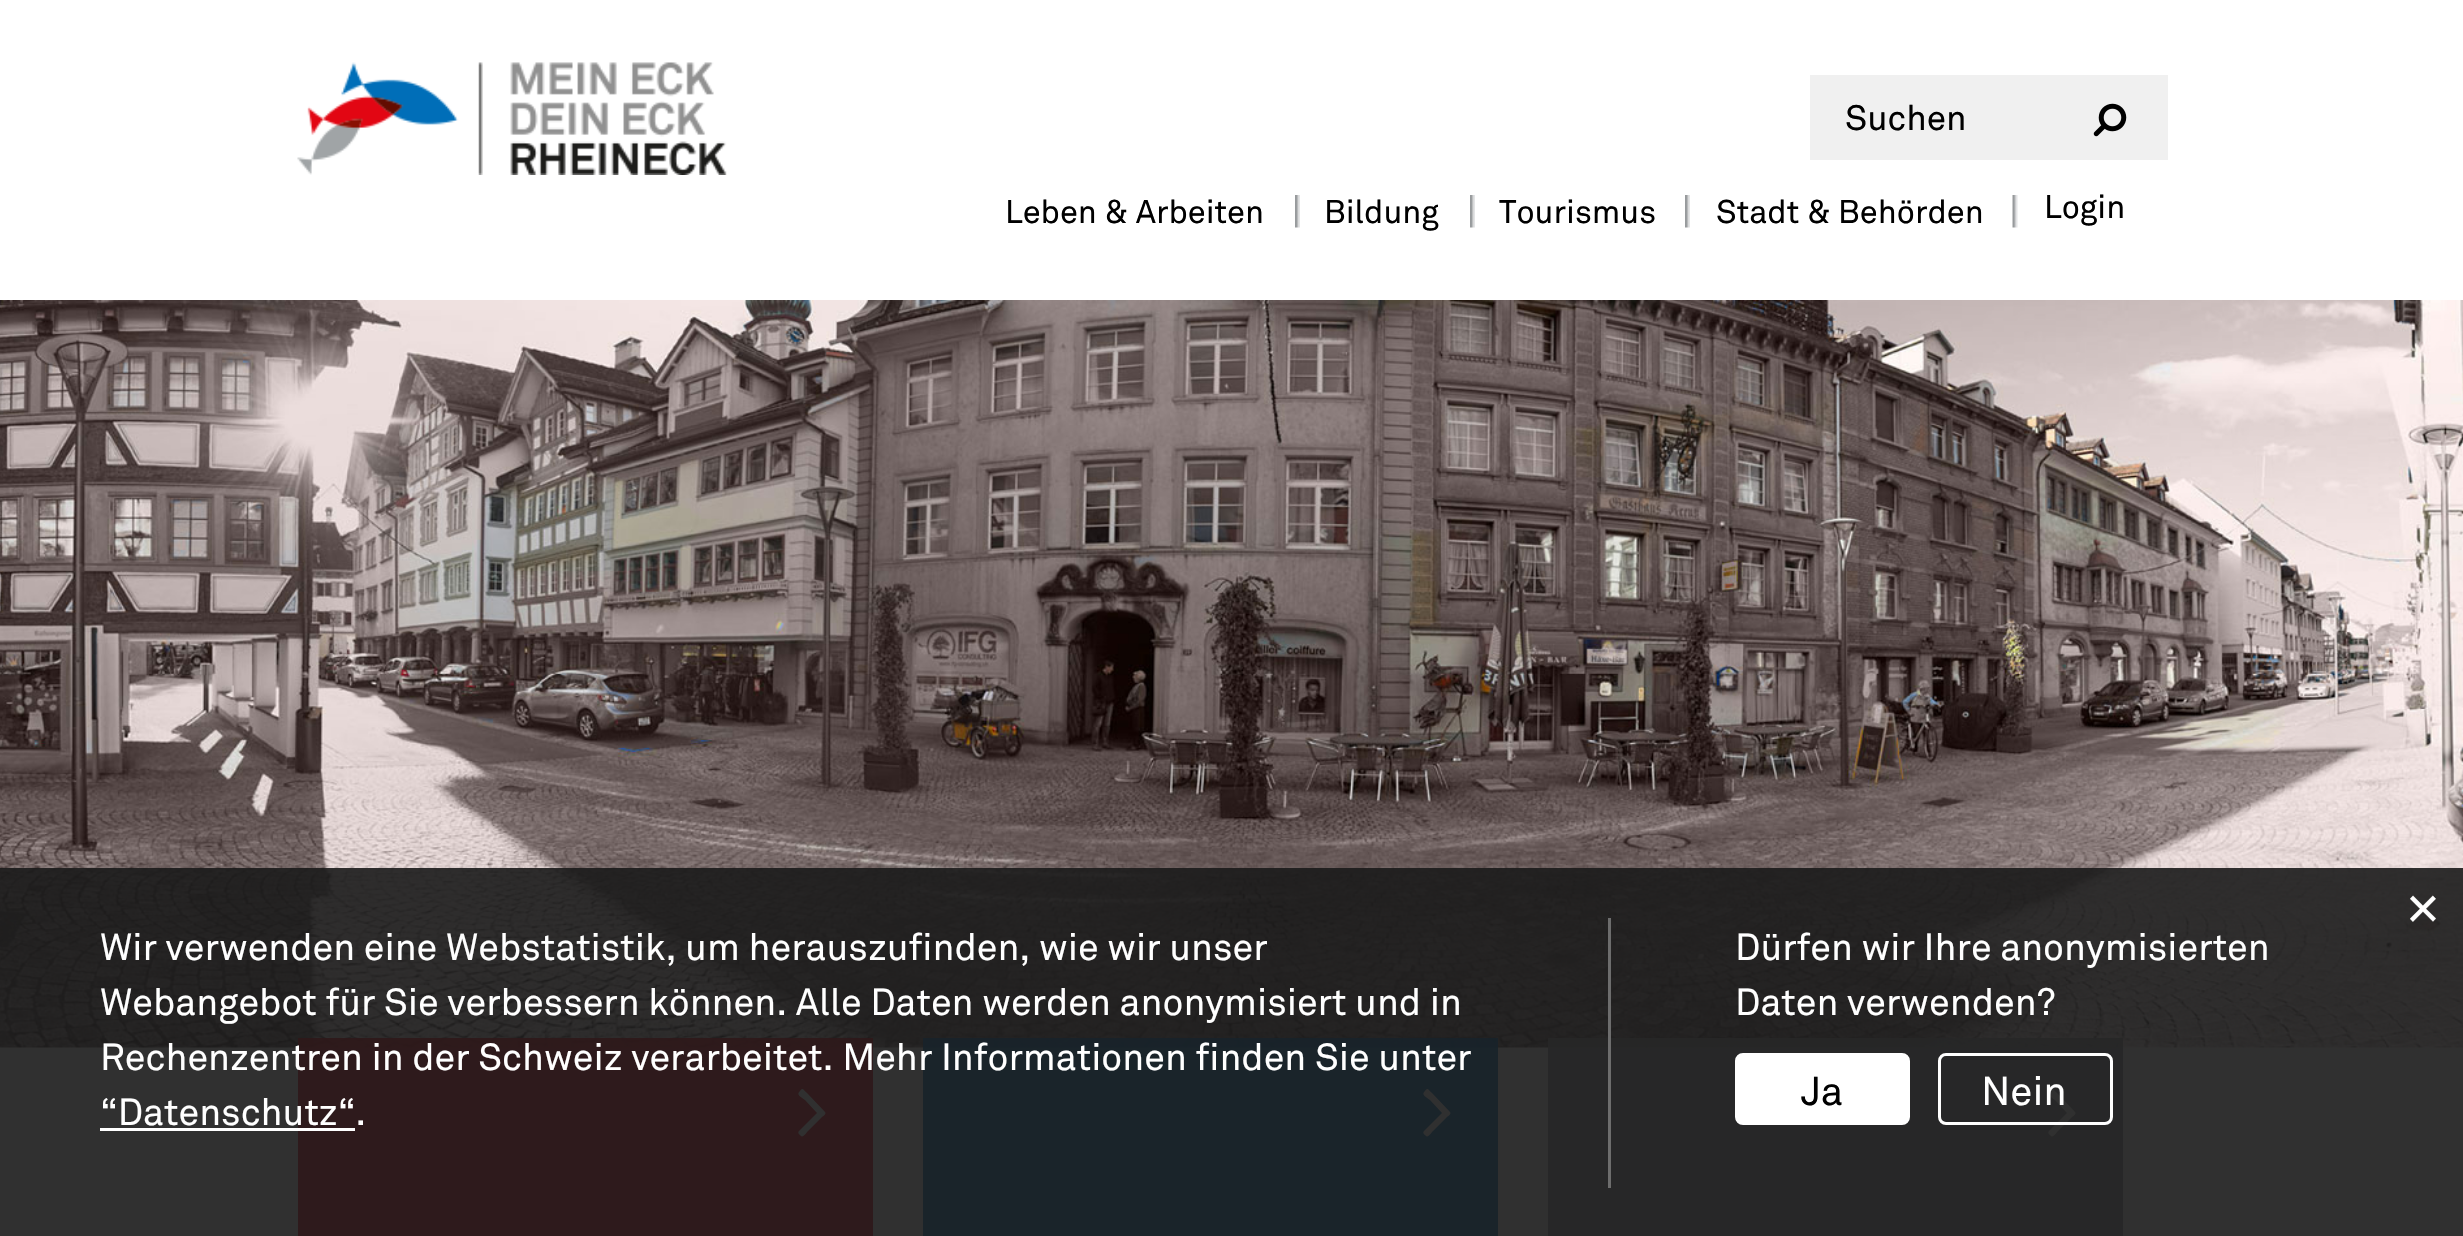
void draw(SkCanvas* canvas) {
	SkPaint fill;
	fill.setAntiAlias(true);
	auto makeFont = [&](const char* family, int weight, float size, bool italic = false) {
		SkFontStyle style(weight, SkFontStyle::kNormal_Width,
			italic ? SkFontStyle::kItalic_Slant : SkFontStyle::kUpright_Slant);
		SkFont result(fontMgr->matchFamilyStyle(family, style), size);
		result.setSubpixel(true);
		return result;
	};
	auto text = [&](const char* s, float x, float y, const SkFont& font) {
		canvas->drawString(s, x, y, font, fill);
	};
	auto box = [&](float l, float t, float r, float b) {
		canvas->drawRect(SkRect::MakeLTRB(l, t, r, b), fill);
	};
	auto picture = [&](const char* path, float l, float t, float r, float b) {
		auto image = SkImages::DeferredFromEncodedData(SkData::MakeFromFileName(path));
		canvas->drawImageRect(image, SkRect::MakeLTRB(l, t, r, b), SkSamplingOptions());
	};
	canvas->clear(0xFFFFFFFF);
	picture("image0.png", 297, 62, 727, 175);
	fill.setColor(0xFFF0F0F0);
	box(1810, 75, 2168, 160);
	picture("image1.png", 2093, 103, 2127, 137);
	picture("image2.png", 1295, 195, 1300, 228);
	picture("image3.png", 1470, 195, 1475, 228);
	picture("image2.png", 1685, 195, 1690, 228);
	picture("image4.png", 2012, 195, 2018, 228);
	picture("image5.png", 0, 300, 2463, 1048);
	fill.setColor(0xE6E30513);
	box(298, 1038, 873, 1236);
	fill.setColor(0xFFFFFFFF);
	canvas->drawPath(SkPathBuilder().moveTo(825, 1112).cubicTo(827, 1114, 822, 1117, 822, 1117).lineTo(807, 1132).cubicTo(807, 1132, 803, 1138, 801, 1136).cubicTo(800, 1135, 797, 1133, 799, 1131).lineTo(817, 1113).lineTo(805, 1100).cubicTo(800, 1096, 796, 1095, 800, 1091).cubicTo(803, 1087, 803, 1090, 807, 1093).close().detach(), fill);
	fill.setColor(0xE6006FB9);
	box(923, 1038, 1498, 1236);
	fill.setColor(0xFFFFFFFF);
	canvas->drawPath(SkPathBuilder().moveTo(1450, 1112).cubicTo(1452, 1114, 1447, 1117, 1447, 1117).lineTo(1432, 1132).cubicTo(1432, 1132, 1428, 1138, 1426, 1136).cubicTo(1425, 1135, 1422, 1133, 1424, 1131).lineTo(1442, 1113).lineTo(1430, 1100).cubicTo(1425, 1096, 1421, 1095, 1425, 1091).cubicTo(1428, 1087, 1428, 1090, 1432, 1093).close().detach(), fill);
	fill.setColor(0xE697999B);
	box(1548, 1038, 2123, 1236);
	fill.setColor(0xFFFFFFFF);
	canvas->drawPath(SkPathBuilder().moveTo(2075, 1112).cubicTo(2077, 1114, 2072, 1117, 2072, 1117).lineTo(2057, 1132).cubicTo(2057, 1132, 2053, 1138, 2051, 1136).cubicTo(2050, 1135, 2047, 1133, 2049, 1131).lineTo(2067, 1113).lineTo(2055, 1100).cubicTo(2050, 1096, 2046, 1095, 2050, 1091).cubicTo(2053, 1087, 2053, 1090, 2057, 1093).close().detach(), fill);
	fill.setColor(0xE6191919);
	box(0, 868, 2463, 1236);
	fill.setColor(0xFF6D6D6D);
	box(1608, 918, 1611, 1188);
	fill.setColor(0xFFFFFFFF);
	box(100, 1128, 355, 1131);
	canvas->drawRoundRect(SkRect::MakeLTRB(1736.5f, 1054.5f, 1908.5f, 1123.5f), 6.5f, 6.5f, fill);
	fill.setStyle(SkPaint::kStroke_Style);
	fill.setStrokeWidth(3);
	canvas->drawRoundRect(SkRect::MakeLTRB(1736.5f, 1054.5f, 1908.5f, 1123.5f), 6.5f, 6.5f, fill);
	canvas->drawRoundRect(SkRect::MakeLTRB(1939.5f, 1054.5f, 2111.5f, 1123.5f), 6.5f, 6.5f, fill);
	auto font1 = makeFont("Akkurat", 400, 35);
	fill.setStyle(SkPaint::kFill_Style);
	fill.setColor(0xFF000000);
	text("Suchen", 1845, 130, font1);
	auto font2 = makeFont("Akkurat", 400, 32.5f);
	text("Leben & Arbeiten", 1005, 223, font2);
	text("Bildung", 1324, 223, font2);
	text("Tourismus", 1499, 223, font2);
	text("Stadt & Behörden", 1716, 223, font2);
	text("Login", 2044, 218, font2);
	auto font3 = makeFont("Liberation Sans", 400, 58);
	fill.setColor(0xFFFFFFFF);
	text("×", 2406, 928, font3);
	auto font4 = makeFont("Akkurat", 400, 37.5f);
	text("Wir verwenden eine Webstatistik, um herauszufinden, wie wir unser", 100, 960, font4);
	text("Webangebot für Sie verbessern können. Alle Daten werden anonymisiert und in", 100, 1015, font4);
	text("Rechenzentren in der Schweiz verarbeitet. Mehr Informationen finden Sie unter", 100, 1070, font4);
	text("“Datenschutz“.", 100, 1125, font4);
	text("Dürfen wir Ihre anonymisierten", 1735, 960, font4);
	text("Daten verwenden?", 1735, 1015, font4);
	auto font5 = makeFont("Akkurat", 400, 40);
	fill.setColor(0xFF000000);
	text("Ja", 1801, 1105, font5);
	fill.setColor(0xFFFFFFFF);
	text("Nein", 1981, 1105, font5);
}
